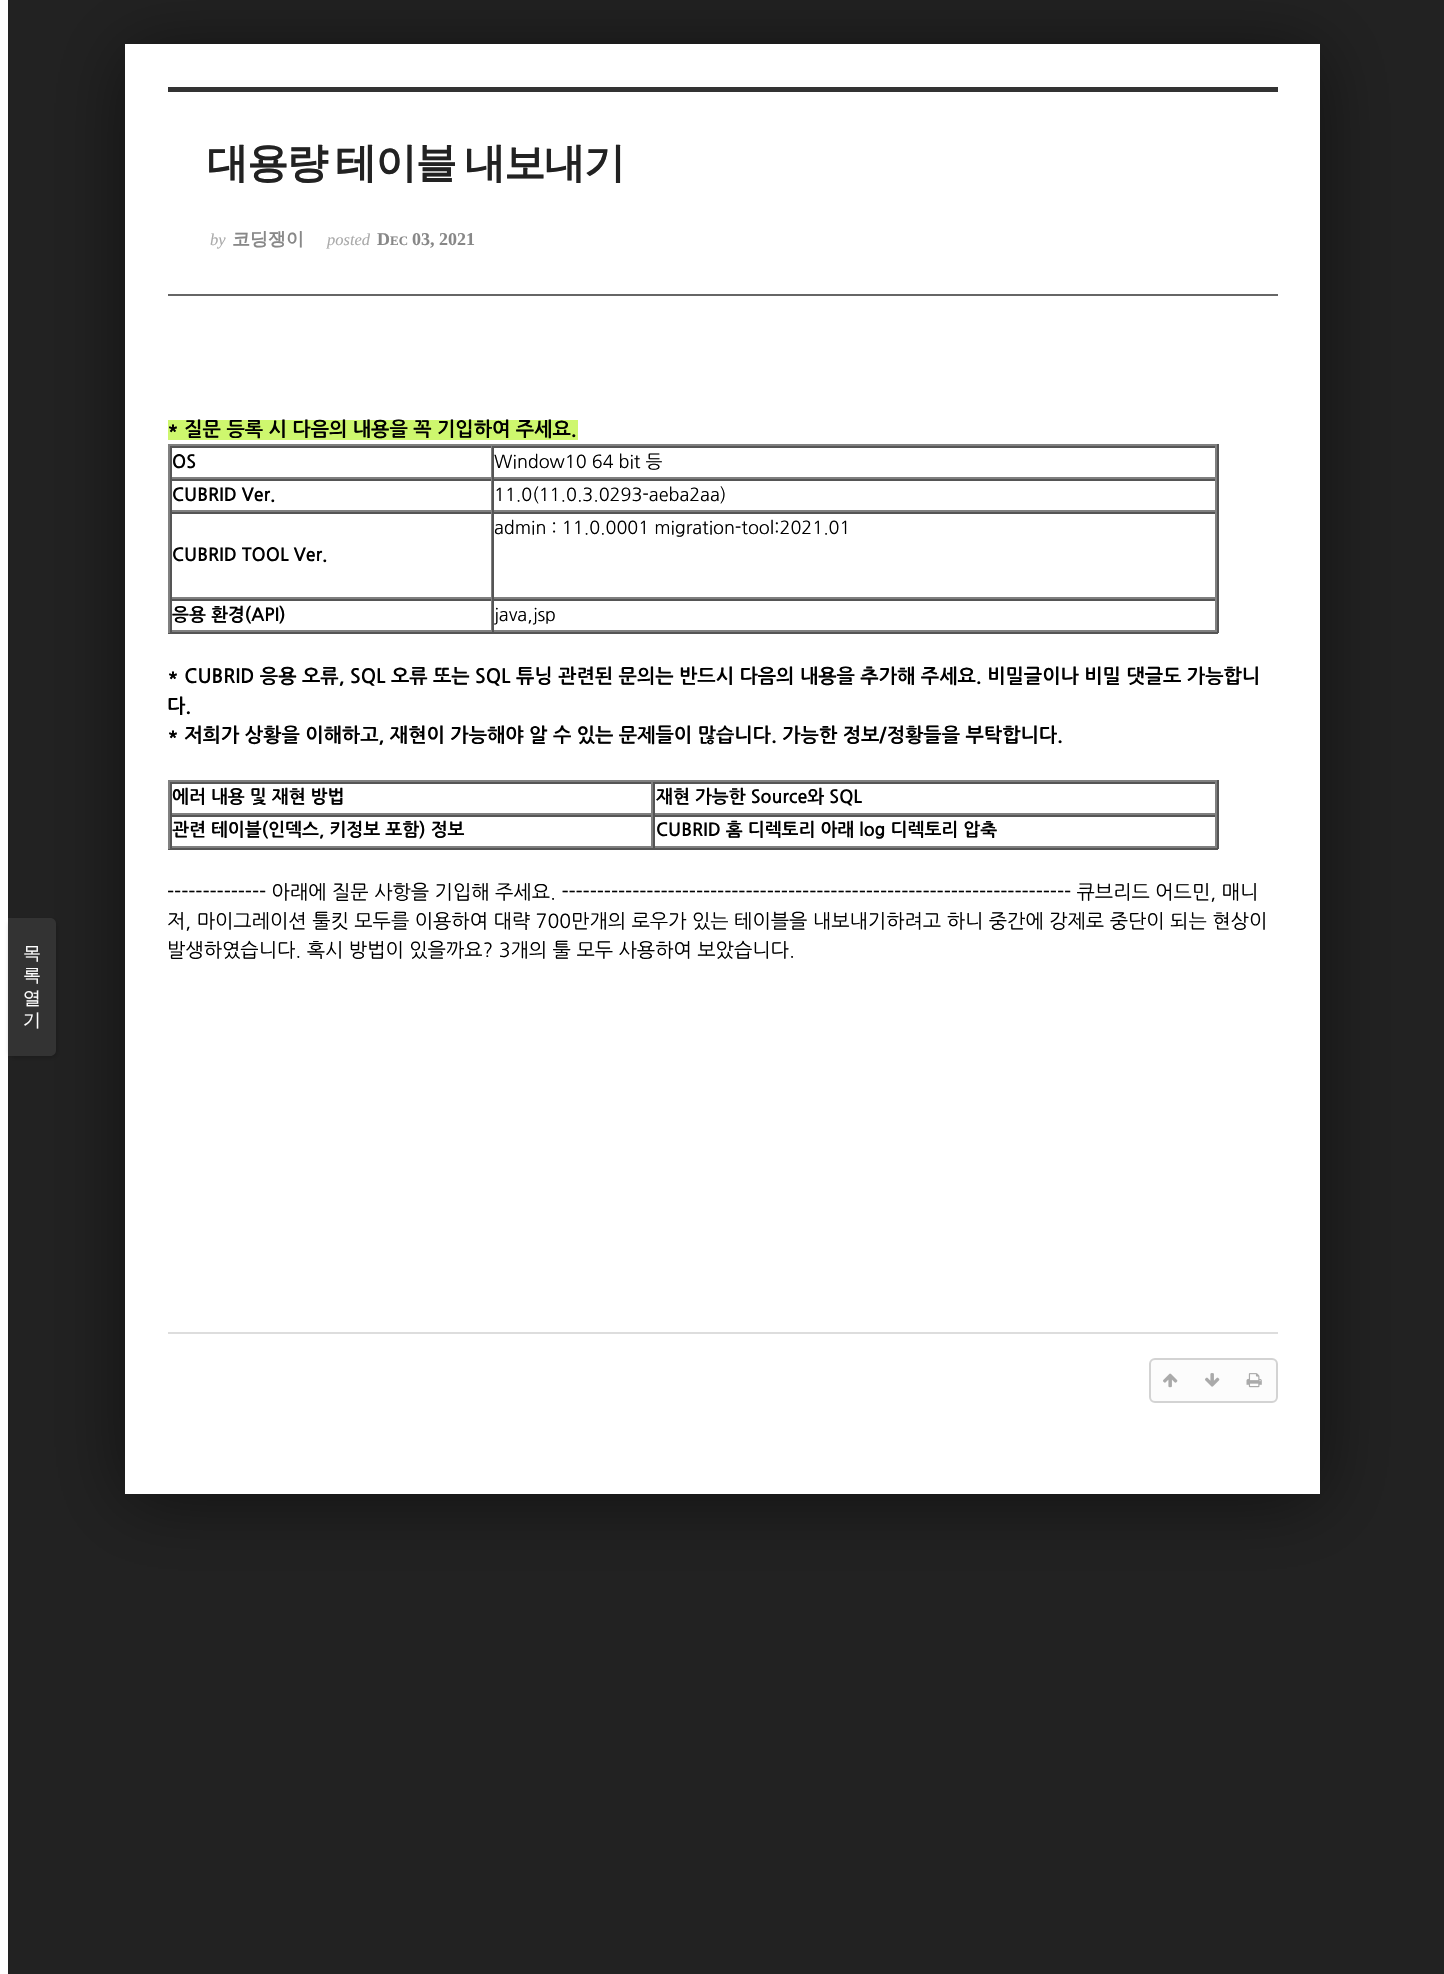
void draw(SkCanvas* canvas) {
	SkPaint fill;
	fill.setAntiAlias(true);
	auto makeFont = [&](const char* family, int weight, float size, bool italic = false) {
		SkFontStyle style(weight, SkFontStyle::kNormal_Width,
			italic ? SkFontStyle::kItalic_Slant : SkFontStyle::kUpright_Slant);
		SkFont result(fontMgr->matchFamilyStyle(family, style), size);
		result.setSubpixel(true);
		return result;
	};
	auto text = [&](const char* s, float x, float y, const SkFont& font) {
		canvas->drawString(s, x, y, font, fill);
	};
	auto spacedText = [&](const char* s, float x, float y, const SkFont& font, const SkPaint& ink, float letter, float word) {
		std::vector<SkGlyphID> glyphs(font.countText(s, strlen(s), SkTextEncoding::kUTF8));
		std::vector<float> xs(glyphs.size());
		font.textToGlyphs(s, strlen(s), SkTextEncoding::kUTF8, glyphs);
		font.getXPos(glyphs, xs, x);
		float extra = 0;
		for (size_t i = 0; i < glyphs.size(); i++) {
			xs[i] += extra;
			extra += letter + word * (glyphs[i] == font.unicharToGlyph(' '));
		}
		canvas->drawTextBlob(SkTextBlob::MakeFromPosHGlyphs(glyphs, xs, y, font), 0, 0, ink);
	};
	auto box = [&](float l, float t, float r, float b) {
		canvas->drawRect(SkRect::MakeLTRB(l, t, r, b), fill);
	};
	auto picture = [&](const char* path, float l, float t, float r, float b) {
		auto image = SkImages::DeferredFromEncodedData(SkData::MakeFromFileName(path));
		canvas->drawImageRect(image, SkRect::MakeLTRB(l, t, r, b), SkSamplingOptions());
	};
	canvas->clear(0xFF222222);
	fill.setColor(0x80000000);
	fill.setMaskFilter(SkMaskFilter::MakeBlur(kNormal_SkBlurStyle, 36));
	canvas->drawRect(SkRect::MakeLTRB(125, 50, 1320, 1500), fill);
	fill.setMaskFilter(nullptr);
	fill.setColor(0xFFFFFFFF);
	box(125, 44, 1320, 1494);
	fill.setColor(0xFF333333);
	box(168, 87, 1278, 92);
	fill.setColor(0xFF666666);
	box(168, 294, 1278, 296);
	fill.setColor(0xFFCEF76E);
	box(168, 420, 578, 440);
	fill.setColor(0xFF808080);
	box(168, 444, 1218, 446);
	fill.setColor(0xFF555555);
	box(1217, 444, 1219, 633);
	box(168, 632, 1218, 634);
	fill.setColor(0xFF808080);
	box(168, 444, 170, 633);
	fill.setColor(0xFF555555);
	box(170, 446, 1217, 448);
	fill.setColor(0xFF808080);
	box(491, 446, 492, 479);
	box(170, 477, 492, 479);
	fill.setColor(0xFF555555);
	box(170, 446, 172, 479);
	fill.setColor(0xFF808080);
	box(1215, 446, 1217, 479);
	box(492, 477, 1217, 479);
	fill.setColor(0xFF555555);
	box(492, 446, 494, 479);
	box(170, 479, 1217, 481);
	fill.setColor(0xFF808080);
	box(491, 479, 492, 512);
	box(170, 510, 492, 512);
	fill.setColor(0xFF555555);
	box(170, 479, 172, 512);
	fill.setColor(0xFF808080);
	box(1215, 479, 1217, 512);
	box(492, 510, 1217, 512);
	fill.setColor(0xFF555555);
	box(492, 479, 494, 512);
	box(170, 512, 1217, 514);
	fill.setColor(0xFF808080);
	box(1215, 512, 1217, 599);
	box(492, 597, 1217, 599);
	fill.setColor(0xFF555555);
	box(492, 512, 494, 599);
	fill.setColor(0xFF808080);
	box(491, 512, 492, 599);
	box(170, 597, 492, 599);
	fill.setColor(0xFF555555);
	box(170, 512, 172, 599);
	box(170, 599, 1217, 601);
	fill.setColor(0xFF808080);
	box(491, 599, 492, 632);
	box(170, 630, 492, 632);
	fill.setColor(0xFF555555);
	box(170, 599, 172, 632);
	fill.setColor(0xFF808080);
	box(1215, 599, 1217, 632);
	box(492, 630, 1217, 632);
	fill.setColor(0xFF555555);
	box(492, 599, 494, 632);
	fill.setColor(0xFF808080);
	box(168, 780, 1218, 782);
	fill.setColor(0xFF555555);
	box(1217, 780, 1219, 849);
	box(168, 848, 1218, 850);
	fill.setColor(0xFF808080);
	box(168, 780, 170, 849);
	fill.setColor(0xFF555555);
	box(170, 782, 1217, 784);
	fill.setColor(0xFF808080);
	box(651, 782, 653, 815);
	box(170, 813, 653, 815);
	fill.setColor(0xFF555555);
	box(170, 782, 172, 815);
	fill.setColor(0xFF808080);
	box(1215, 782, 1217, 815);
	box(653, 813, 1217, 815);
	fill.setColor(0xFF555555);
	box(653, 782, 655, 815);
	box(170, 815, 1217, 817);
	fill.setColor(0xFF808080);
	box(651, 815, 653, 848);
	box(170, 846, 653, 848);
	fill.setColor(0xFF555555);
	box(170, 815, 172, 848);
	fill.setColor(0xFF808080);
	box(1215, 815, 1217, 848);
	box(653, 846, 1217, 848);
	fill.setColor(0xFF555555);
	box(653, 815, 655, 848);
	fill.setColor(0xFFDDDDDD);
	box(168, 1332, 1278, 1334);
	fill.setColor(0xFFFCFCFC);
	canvas->drawRoundRect(SkRect::MakeLTRB(1150, 1359, 1277, 1402), 5, 5, fill);
	fill.setStyle(SkPaint::kStroke_Style);
	fill.setStrokeWidth(2);
	fill.setColor(0xFFD3D3D3);
	canvas->drawRoundRect(SkRect::MakeLTRB(1150, 1359, 1277, 1402), 5, 5, fill);
	picture("image0.png", 1163, 1373, 1178, 1388);
	picture("image1.png", 1205, 1373, 1220, 1387);
	picture("image2.png", 1246, 1373, 1262, 1388);
	fill.setStyle(SkPaint::kFill_Style);
	fill.setColor(0xFFFFFFFF);
	box(0, 0, 8, 1974);
	fill.setColor(0x33000000);
	fill.setMaskFilter(SkMaskFilter::MakeBlur(kNormal_SkBlurStyle, 2));
	canvas->drawRoundRect(SkRect::MakeLTRB(9, 920, 57, 1058), 6, 6, fill);
	fill.setMaskFilter(nullptr);
	fill.setColor(0xFF333333);
	canvas->drawPath(SkPathBuilder().moveTo(8, 918).lineTo(50, 918).cubicTo(53.5f, 918, 56, 920.5f, 56, 924).lineTo(56, 1050).cubicTo(56, 1053.5f, 53.5f, 1056, 50, 1056).lineTo(8, 1056).close().detach(), fill);
	auto font1 = makeFont("WenQuanYi Zen Hei", 700, 41.4f);
	fill.setColor(0xFF222222);
	spacedText("대용량 테이블 내보내기", 207, 177, font1, fill, -1.5f, -2);
	auto font2 = makeFont("Liberation Serif", 400, 16.5f, true);
	fill.setColor(0xFFAAAAAA);
	text("by", 210, 245, font2);
	auto font3 = makeFont("WenQuanYi Zen Hei", 700, 18);
	fill.setColor(0xFF888888);
	text("코딩쟁이", 232, 245, font3);
	fill.setColor(0xFFAAAAAA);
	text("posted", 327, 245, font2);
	auto font4 = makeFont("Liberation Serif", 700, 18);
	fill.setColor(0xFF888888);
	text("D", 377, 245, font4);
	auto font5 = makeFont("Liberation Serif", 700, 13);
	text("EC", 390, 245, font5);
	text("03, 2021", 412, 245, font4);
	auto font6 = makeFont("NanumGothic", 700, 19.5f);
	fill.setColor(0xFF000000);
	text("* 질문 등록 시 다음의 내용을 꼭 기입하여 주세요.", 167, 436, font6);
	auto font7 = makeFont("NanumGothic", 700, 18);
	text("OS", 172, 468, font7);
	auto font8 = makeFont("NanumGothic", 400, 18);
	text("Window10 64 bit 등", 494, 468, font8);
	text("CUBRID Ver.", 172, 501, font7);
	text("11.0(11.0.3.0293-aeba2aa)", 494, 501, font8);
	text("admin : 11.0.0001 migration-tool:2021.01", 494, 534, font8);
	text("CUBRID TOOL Ver.", 172, 561, font7);
	text("응용 환경(API)", 172, 621, font7);
	text("java,jsp", 494, 621, font8);
	text("* CUBRID 응용 오류, SQL 오류 또는 SQL 튜닝 관련된 문의는 반드시 다음의 내용을 추가해 주세요. 비밀글이나 비밀 댓글도 가능합니", 167, 683, font6);
	text("다.", 167, 713, font6);
	text("* 저희가 상황을 이해하고, 재현이 가능해야 알 수 있는 문제들이 많습니다. 가능한 정보/정황들을 부탁합니다.", 167, 742, font6);
	text("에러 내용 및 재현 방법", 172, 803, font7);
	text("재현 가능한 Source와 SQL", 656, 803, font7);
	text("관련 테이블(인덱스, 키정보 포함) 정보", 172, 836, font7);
	text("CUBRID 홈 디렉토리 아래 log 디렉토리 압축", 656, 836, font7);
	auto font9 = makeFont("NanumGothic", 400, 19.5f);
	text("-------------- 아래에 질문 사항을 기입해 주세요. ------------------------------------------------------------------------ 큐브리드 어드민, 매니", 167, 899, font9);
	text("저, 마이그레이션 툴킷 모두를 이용하여 대략 700만개의 로우가 있는 테이블을 내보내기하려고 하니 중간에 강제로 중단이 되는 현상이", 167, 928, font9);
	text("발생하였습니다. 혹시 방법이 있을까요? 3개의 툴 모두 사용하여 보았습니다.", 167, 957, font9);
	auto font10 = makeFont("WenQuanYi Zen Hei", 500, 18);
	fill.setColor(0xFFFFFFFF);
	text("목", 23, 959, font10);
	text("록", 23, 981, font10);
	text("열", 23, 1004, font10);
	text("기", 23, 1026, font10);
}
